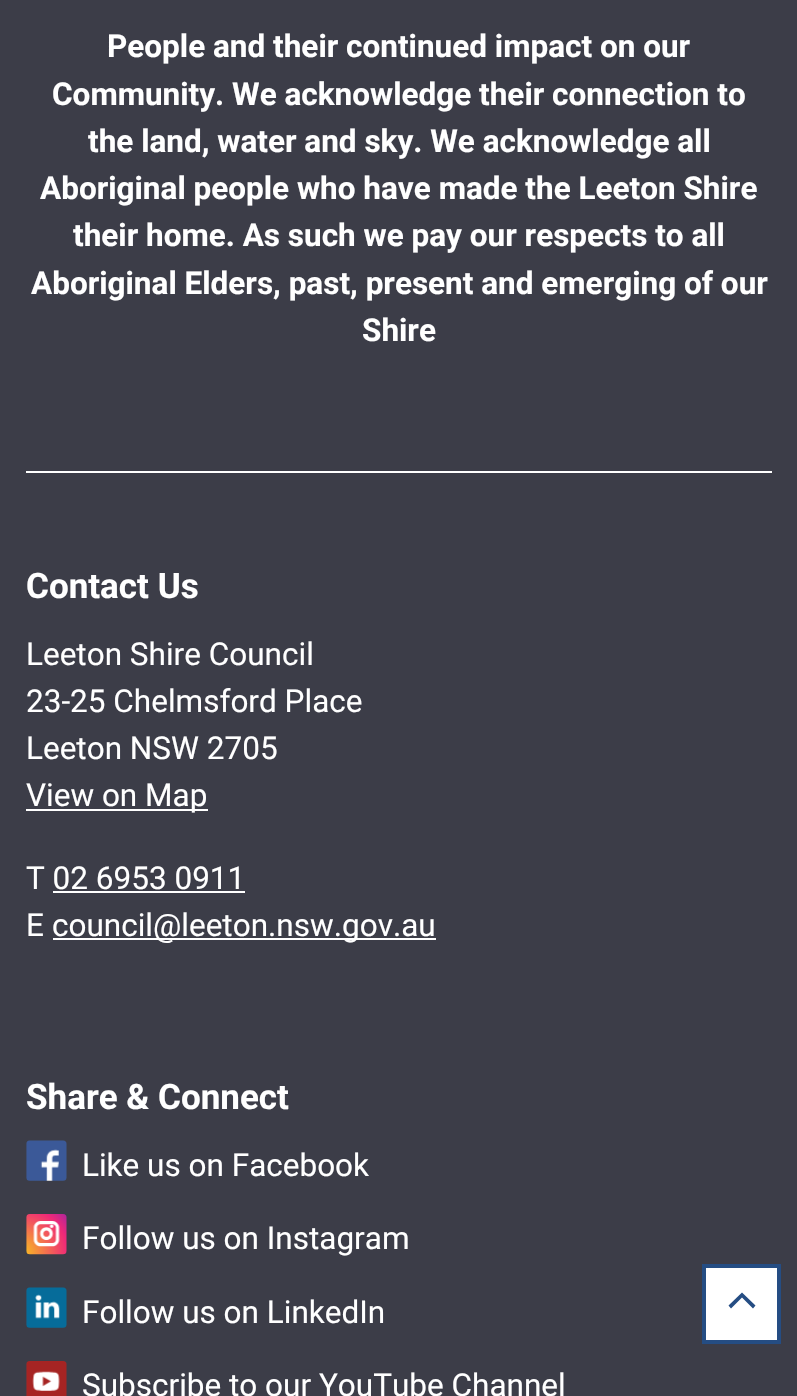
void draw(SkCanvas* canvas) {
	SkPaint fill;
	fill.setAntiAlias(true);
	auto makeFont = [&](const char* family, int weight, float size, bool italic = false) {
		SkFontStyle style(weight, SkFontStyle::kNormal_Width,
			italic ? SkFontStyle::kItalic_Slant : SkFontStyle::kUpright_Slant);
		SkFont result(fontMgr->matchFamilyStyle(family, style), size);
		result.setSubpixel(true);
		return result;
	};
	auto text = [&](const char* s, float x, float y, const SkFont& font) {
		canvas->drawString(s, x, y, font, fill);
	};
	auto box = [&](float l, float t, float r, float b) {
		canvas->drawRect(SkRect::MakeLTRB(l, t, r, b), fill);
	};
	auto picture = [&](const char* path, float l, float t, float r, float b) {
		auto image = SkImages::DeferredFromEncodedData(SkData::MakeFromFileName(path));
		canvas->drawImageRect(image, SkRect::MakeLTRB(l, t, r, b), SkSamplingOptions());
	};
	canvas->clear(0xFF3C3D48);
	fill.setColor(0xFFFFFFFF);
	box(26, 471, 772, 473);
	box(26, 809, 208, 811);
	box(53, 891, 245, 893);
	box(53, 938, 436, 940);
	picture("image0.png", 26, 1140, 67, 1181);
	picture("image1.png", 26, 1214, 67, 1255);
	picture("image2.png", 26, 1287, 67, 1328);
	picture("image3.png", 26, 1361, 67, 1396);
	canvas->drawRect(SkRect::MakeLTRB(704, 1266, 779, 1342), fill);
	fill.setStyle(SkPaint::kStroke_Style);
	fill.setStrokeWidth(4);
	fill.setColor(0xFF254D83);
	canvas->drawRect(SkRect::MakeLTRB(704, 1266, 779, 1342), fill);
	fill.setStyle(SkPaint::kFill_Style);
	canvas->drawPath(SkPathBuilder().moveTo(753, 1308.5f).lineTo(742, 1297.5f).lineTo(731, 1308.5f).lineTo(728.5f, 1305.5f).lineTo(742, 1292.5f).lineTo(755.5f, 1305.5f).close().detach(), fill);
	auto font1 = makeFont("Roboto", 700, 31.5f);
	fill.setColor(0xFFFFFFFF);
	text("People and their continued impact on our", 107, 57, font1);
	text("Community. We acknowledge their connection to", 52, 105, font1);
	text("the land, water and sky. We acknowledge all", 88, 152, font1);
	text("Aboriginal people who have made the Leeton Shire", 40, 199, font1);
	text("their home. As such we pay our respects to all", 73, 246, font1);
	text("Aboriginal Elders, past, present and emerging of our", 31, 294, font1);
	text("Shire", 362, 341, font1);
	auto font2 = makeFont("Roboto", 700, 35);
	text("Contact Us", 26, 598, font2);
	auto font3 = makeFont("Roboto", 400, 31.5f);
	text("Leeton Shire Council", 26, 665, font3);
	text("23-25 Chelmsford Place", 26, 712, font3);
	text("Leeton NSW 2705", 26, 759, font3);
	text("View on Map", 26, 806, font3);
	text("T 02 6953 0911", 26, 889, font3);
	text("E", 26, 936, font3);
	text("council@leeton.nsw.gov.au", 52, 936, font3);
	text("Share & Connect", 26, 1109, font2);
	text("Like us on Facebook", 82, 1176, font3);
	text("Follow us on Instagram", 82, 1249, font3);
	text("Follow us on LinkedIn", 82, 1323, font3);
	text("Subscribe to our YouTube Channel", 82, 1396, font3);
}
